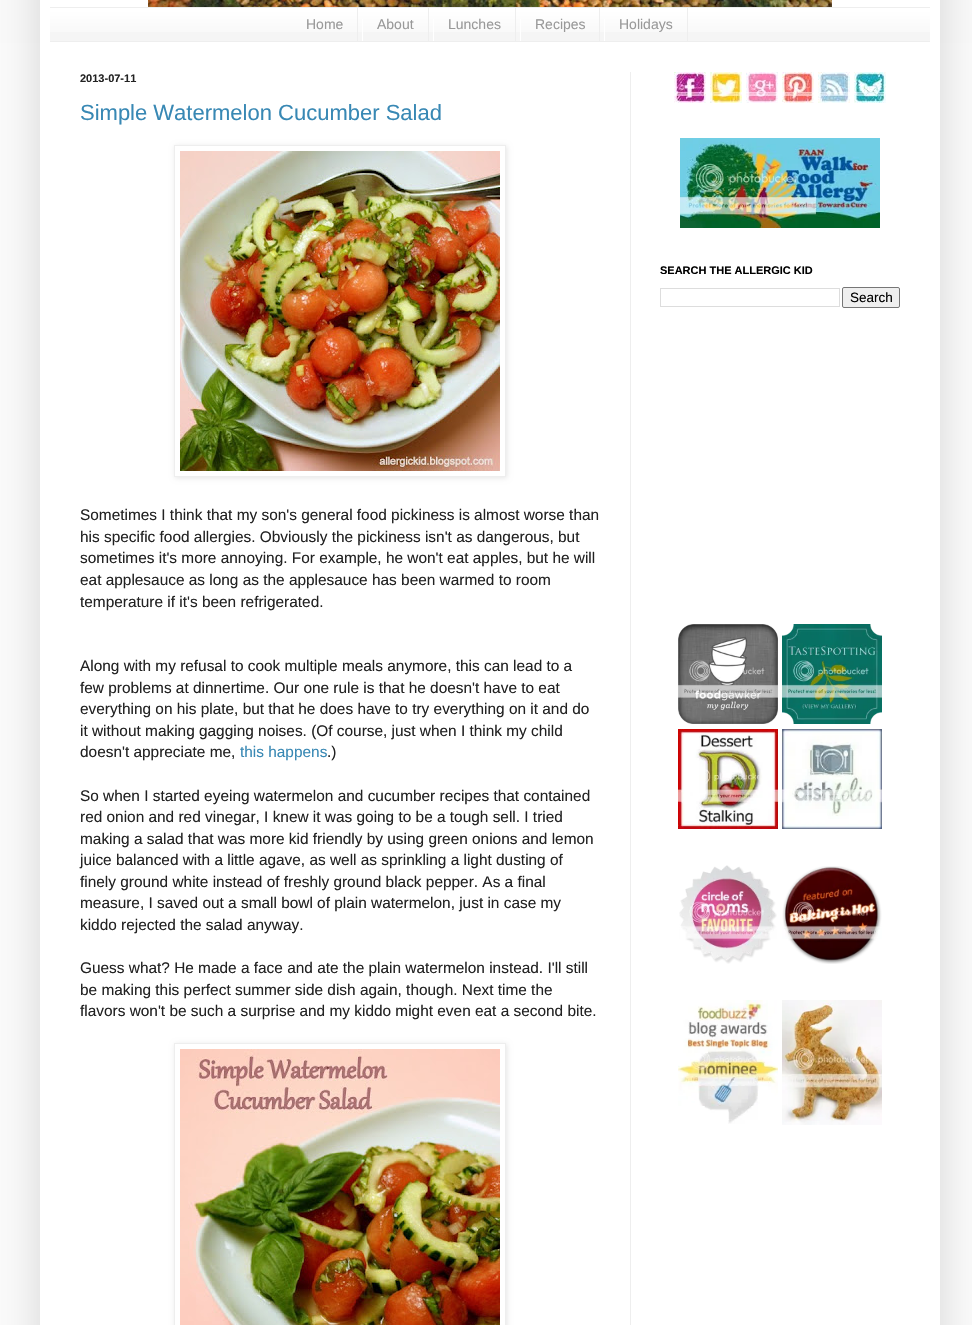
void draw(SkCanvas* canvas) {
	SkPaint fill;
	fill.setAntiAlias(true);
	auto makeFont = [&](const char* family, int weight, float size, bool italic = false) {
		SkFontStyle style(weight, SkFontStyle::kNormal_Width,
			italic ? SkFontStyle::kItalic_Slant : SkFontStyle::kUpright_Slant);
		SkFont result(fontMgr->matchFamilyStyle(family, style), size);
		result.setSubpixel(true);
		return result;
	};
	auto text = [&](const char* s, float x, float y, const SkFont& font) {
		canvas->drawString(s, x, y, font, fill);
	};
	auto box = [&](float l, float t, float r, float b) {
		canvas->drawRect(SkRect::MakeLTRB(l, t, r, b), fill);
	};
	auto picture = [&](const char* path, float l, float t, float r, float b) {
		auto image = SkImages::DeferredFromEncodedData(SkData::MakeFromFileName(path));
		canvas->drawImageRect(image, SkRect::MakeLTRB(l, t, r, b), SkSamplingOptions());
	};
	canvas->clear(0xFFFBFBFB);
	fill.setColor(0xFFF5F5F5);
	box(0, 0, 972, 84);
	picture("image0.png", 0, 0, 972, 84);
	fill.setColor(0x26000000);
	fill.setMaskFilter(SkMaskFilter::MakeBlur(kNormal_SkBlurStyle, 20));
	canvas->drawRect(SkRect::MakeLTRB(40, -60, 940, 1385), fill);
	fill.setMaskFilter(nullptr);
	fill.setColor(0xFFFFFFFF);
	box(40, 0, 940, 1325);
	picture("image1.png", 148, 0, 832, 7);
	fill.setColor(0xFFF5F5F5);
	box(50, 9, 930, 41);
	picture("image2.png", 50, 8, 930, 32);
	fill.setColor(0xFFEEEEEE);
	box(50, 7, 930, 8);
	box(50, 41, 930, 42);
	box(357, 8, 358, 41);
	box(428, 8, 429, 41);
	fill.setColor(0xFFFFFFFF);
	box(362, 19, 363, 41);
	fill.setColor(0xFFEEEEEE);
	box(515, 8, 516, 41);
	fill.setColor(0xFFFFFFFF);
	box(433, 19, 434, 41);
	fill.setColor(0xFFEEEEEE);
	box(599, 8, 600, 41);
	fill.setColor(0xFFFFFFFF);
	box(520, 19, 521, 41);
	fill.setColor(0xFFEEEEEE);
	box(687, 8, 688, 41);
	fill.setColor(0xFFFFFFFF);
	box(604, 19, 605, 41);
	fill.setColor(0xFFEEEEEE);
	box(630, 72, 631, 1325);
	canvas->save();
	canvas->clipPath(SkPathBuilder(SkPathFillType::kEvenOdd).moveTo(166, 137).lineTo(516, 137).lineTo(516, 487).lineTo(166, 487).close().moveTo(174, 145).lineTo(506, 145).lineTo(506, 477).lineTo(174, 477).close().detach(), true);
	fill.setColor(0x1A000000);
	fill.setMaskFilter(SkMaskFilter::MakeBlur(kNormal_SkBlurStyle, 2.5f));
	canvas->drawRect(SkRect::MakeLTRB(175, 146, 507, 478), fill);
	fill.setMaskFilter(nullptr);
	canvas->restore();
	fill.setStyle(SkPaint::kStroke_Style);
	fill.setStrokeWidth(1);
	fill.setColor(0xFFEEEEEE);
	canvas->drawRect(SkRect::MakeLTRB(174.5f, 145.5f, 505.5f, 476.5f), fill);
	picture("image3.png", 180, 151, 500, 471);
	canvas->save();
	canvas->clipPath(SkPathBuilder(SkPathFillType::kEvenOdd).moveTo(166, 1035).lineTo(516, 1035).lineTo(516, 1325).lineTo(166, 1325).close().moveTo(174, 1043).lineTo(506, 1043).lineTo(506, 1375).lineTo(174, 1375).close().detach(), true);
	fill.setStyle(SkPaint::kFill_Style);
	fill.setColor(0x1A000000);
	fill.setMaskFilter(SkMaskFilter::MakeBlur(kNormal_SkBlurStyle, 2.5f));
	canvas->drawRect(SkRect::MakeLTRB(175, 1044, 507, 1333), fill);
	fill.setMaskFilter(nullptr);
	canvas->restore();
	fill.setStyle(SkPaint::kStroke_Style);
	fill.setColor(0xFFEEEEEE);
	canvas->drawRect(SkRect::MakeLTRB(174.5f, 1043.5f, 505.5f, 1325.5f), fill);
	picture("image4.png", 180, 1049, 500, 1325);
	picture("image5.png", 674, 72, 706, 103);
	picture("image6.png", 710, 72, 742, 103);
	picture("image7.png", 746, 72, 778, 103);
	picture("image8.png", 782, 72, 814, 103);
	picture("image9.png", 818, 72, 850, 103);
	picture("image10.png", 854, 72, 886, 103);
	picture("image11.png", 680, 138, 880, 228);
	fill.setColor(0xFFDDDDDD);
	canvas->drawRect(SkRect::MakeLTRB(660.5f, 288.5f, 839.5f, 306.5f), fill);
	fill.setStyle(SkPaint::kFill_Style);
	fill.setColor(0xFFEFEFEF);
	canvas->drawRoundRect(SkRect::MakeLTRB(842.5f, 287.5f, 899.5f, 307.5f), 1.5f, 1.5f, fill);
	fill.setStyle(SkPaint::kStroke_Style);
	fill.setColor(0xFF767676);
	canvas->drawRoundRect(SkRect::MakeLTRB(842.5f, 287.5f, 899.5f, 307.5f), 1.5f, 1.5f, fill);
	picture("image12.png", 678, 624, 778, 724);
	picture("image13.png", 782, 624, 882, 724);
	picture("image14.png", 678, 729, 778, 829);
	picture("image15.png", 782, 729, 882, 829);
	picture("image16.png", 679, 865, 777, 964);
	picture("image17.png", 782, 866, 882, 964);
	picture("image18.png", 678, 1000, 778, 1124);
	picture("image19.png", 782, 1000, 882, 1125);
	auto font1 = makeFont("Liberation Sans", 400, 14);
	fill.setStyle(SkPaint::kFill_Style);
	fill.setColor(0xFF999999);
	text("Home", 306, 29, font1);
	text("About", 377, 29, font1);
	text("Lunches", 448, 29, font1);
	text("Recipes", 535, 29, font1);
	text("Holidays", 619, 29, font1);
	auto font2 = makeFont("Liberation Sans", 700, 11);
	fill.setColor(0xFF222222);
	text("2013-07-11", 80, 82, font2);
	auto font3 = makeFont("Liberation Sans", 400, 22);
	fill.setColor(0xFF3888B4);
	text("Simple Watermelon Cucumber Salad", 80, 120, font3);
	auto font4 = makeFont("Liberation Sans", 400, 15.4f);
	fill.setColor(0xFF222222);
	text("Sometimes I think that my son's general food pickiness is almost worse than", 80, 520, font4);
	text("his specific food allergies. Obviously the pickiness isn't as dangerous, but", 80, 542, font4);
	text("sometimes it's more annoying. For example, he won't eat apples, but he will", 80, 563, font4);
	text("eat applesauce as long as the applesauce has been warmed to room", 80, 585, font4);
	text("temperature if it's been refrigerated.", 80, 607, font4);
	text("Along with my refusal to cook multiple meals anymore, this can lead to a", 80, 671, font4);
	text("few problems at dinnertime. Our one rule is that he doesn't have to eat", 80, 693, font4);
	text("everything on his plate, but that he does have to try everything on it and do", 80, 714, font4);
	text("it without making gagging noises. (Of course, just when I think my child", 80, 736, font4);
	text("doesn't appreciate me,", 80, 757, font4);
	fill.setColor(0xFF3888B4);
	text("this happens", 240, 757, font4);
	fill.setColor(0xFF222222);
	text(".)", 327, 757, font4);
	text("So when I started eyeing watermelon and cucumber recipes that contained", 80, 801, font4);
	text("red onion and red vinegar, I knew it was going to be a tough sell. I tried", 80, 822, font4);
	text("making a salad that was more kid friendly by using green onions and lemon", 80, 844, font4);
	text("juice balanced with a little agave, as well as sprinkling a light dusting of", 80, 865, font4);
	text("finely ground white instead of freshly ground black pepper. As a final", 80, 887, font4);
	text("measure, I saved out a small bowl of plain watermelon, just in case my", 80, 908, font4);
	text("kiddo rejected the salad anyway.", 80, 930, font4);
	text("Guess what? He made a face and ate the plain watermelon instead. I'll still", 80, 973, font4);
	text("be making this perfect summer side dish again, though. Next time the", 80, 995, font4);
	text("flavors won't be such a surprise and my kiddo might even eat a second bite.", 80, 1016, font4);
	fill.setColor(0xFF000000);
	text("SEARCH THE ALLERGIC KID", 660, 274, font2);
	auto font5 = makeFont("Liberation Sans", 400, 13.5f);
	text("Search", 850, 302, font5);
}
